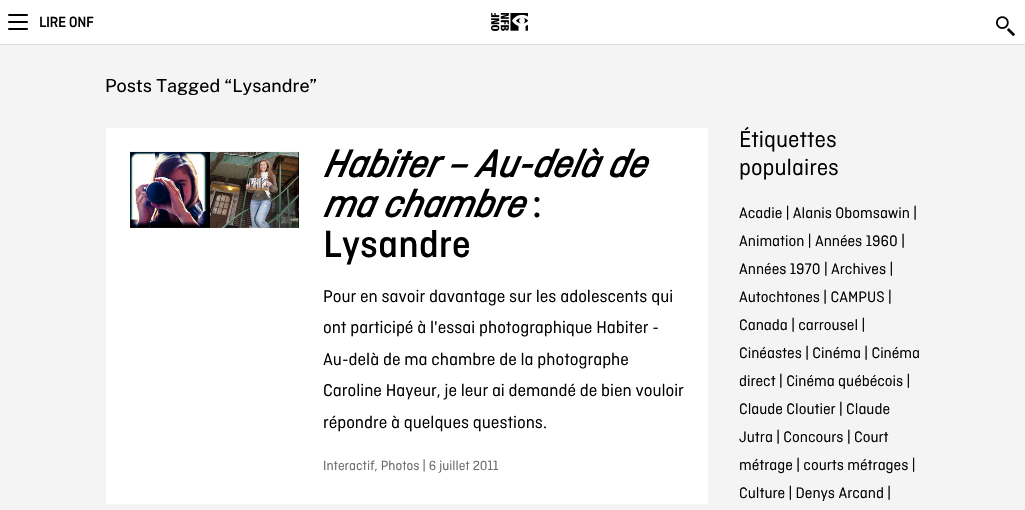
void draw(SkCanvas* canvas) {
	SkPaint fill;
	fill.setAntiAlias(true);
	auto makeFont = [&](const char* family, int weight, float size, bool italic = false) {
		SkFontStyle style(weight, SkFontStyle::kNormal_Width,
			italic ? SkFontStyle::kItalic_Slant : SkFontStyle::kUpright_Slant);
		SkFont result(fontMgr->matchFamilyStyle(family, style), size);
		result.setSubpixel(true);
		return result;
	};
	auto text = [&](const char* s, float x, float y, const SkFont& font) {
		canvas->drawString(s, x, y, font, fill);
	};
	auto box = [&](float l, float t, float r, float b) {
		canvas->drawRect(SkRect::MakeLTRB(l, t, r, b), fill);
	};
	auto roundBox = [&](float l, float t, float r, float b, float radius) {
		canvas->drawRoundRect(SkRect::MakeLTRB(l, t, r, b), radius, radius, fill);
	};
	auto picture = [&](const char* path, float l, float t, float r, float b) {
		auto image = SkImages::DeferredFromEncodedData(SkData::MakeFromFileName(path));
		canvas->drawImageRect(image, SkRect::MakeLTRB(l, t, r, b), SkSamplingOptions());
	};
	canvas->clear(0xFFF5F4F4);
	fill.setColor(0xFFFFFFFF);
	box(0, 0, 1025, 44);
	fill.setColor(0xFFD8D9DB);
	box(0, 44, 1025, 45);
	fill.setColor(0xFF000000);
	roundBox(8, 14, 28, 16, 1);
	roundBox(8, 21, 28, 23, 1);
	roundBox(8, 28, 28, 30, 1);
	picture("image0.png", 491, 13, 528, 31);
	picture("image1.png", 996, 16, 1015, 37);
	fill.setColor(0xFFFFFFFF);
	box(106, 128, 708, 504);
	picture("image2.png", 130, 151, 299, 228);
	auto font1 = makeFont("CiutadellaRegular", 700, 15);
	fill.setColor(0xFF000000);
	text("LIRE ONF", 39, 27, font1);
	auto font2 = makeFont("Public Sans", 400, 18);
	text("Posts Tagged “Lysandre”", 105, 92, font2);
	auto font3 = makeFont("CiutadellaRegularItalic", 700, 40, true);
	text("Habiter – Au-delà de", 323, 177, font3);
	text("ma chambre", 323, 217, font3);
	auto font4 = makeFont("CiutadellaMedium", 500, 40);
	text(":", 532, 217, font4);
	text("Lysandre", 323, 257, font4);
	auto font5 = makeFont("CiutadellaRegular", 400, 18);
	text("Pour en savoir davantage sur les adolescents qui", 323, 302, font5);
	text("ont participé à l'essai photographique Habiter -", 323, 333, font5);
	text("Au-delà de ma chambre de la photographe", 323, 365, font5);
	text("Caroline Hayeur, je leur ai demandé de bien vouloir", 323, 396, font5);
	text("répondre à quelques questions.", 323, 428, font5);
	auto font6 = makeFont("CiutadellaRegular", 400, 14);
	fill.setColor(0xFF6B6A69);
	text("Interactif, Photos | 6 juillet 2011", 323, 470, font6);
	auto font7 = makeFont("CiutadellaRegular", 400, 24);
	fill.setColor(0xFF000000);
	text("Étiquettes", 739, 147, font7);
	text("populaires", 739, 175, font7);
	auto font8 = makeFont("CiutadellaRegular", 400, 16);
	text("Acadie | Alanis Obomsawin |", 739, 218, font8);
	text("Animation | Années 1960 |", 739, 246, font8);
	text("Années 1970 | Archives |", 739, 274, font8);
	text("Autochtones | CAMPUS |", 739, 302, font8);
	text("Canada | carrousel |", 739, 330, font8);
	text("Cinéastes | Cinéma | Cinéma", 739, 358, font8);
	text("direct | Cinéma québécois |", 739, 386, font8);
	text("Claude Cloutier | Claude", 739, 414, font8);
	text("Jutra | Concours | Court", 739, 442, font8);
	text("métrage | courts métrages |", 739, 470, font8);
	text("Culture | Denys Arcand |", 739, 498, font8);
}
